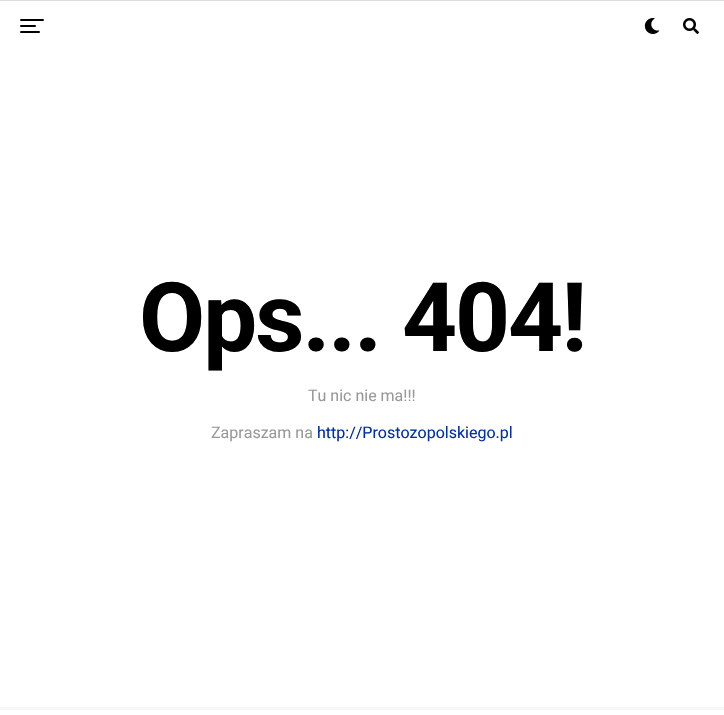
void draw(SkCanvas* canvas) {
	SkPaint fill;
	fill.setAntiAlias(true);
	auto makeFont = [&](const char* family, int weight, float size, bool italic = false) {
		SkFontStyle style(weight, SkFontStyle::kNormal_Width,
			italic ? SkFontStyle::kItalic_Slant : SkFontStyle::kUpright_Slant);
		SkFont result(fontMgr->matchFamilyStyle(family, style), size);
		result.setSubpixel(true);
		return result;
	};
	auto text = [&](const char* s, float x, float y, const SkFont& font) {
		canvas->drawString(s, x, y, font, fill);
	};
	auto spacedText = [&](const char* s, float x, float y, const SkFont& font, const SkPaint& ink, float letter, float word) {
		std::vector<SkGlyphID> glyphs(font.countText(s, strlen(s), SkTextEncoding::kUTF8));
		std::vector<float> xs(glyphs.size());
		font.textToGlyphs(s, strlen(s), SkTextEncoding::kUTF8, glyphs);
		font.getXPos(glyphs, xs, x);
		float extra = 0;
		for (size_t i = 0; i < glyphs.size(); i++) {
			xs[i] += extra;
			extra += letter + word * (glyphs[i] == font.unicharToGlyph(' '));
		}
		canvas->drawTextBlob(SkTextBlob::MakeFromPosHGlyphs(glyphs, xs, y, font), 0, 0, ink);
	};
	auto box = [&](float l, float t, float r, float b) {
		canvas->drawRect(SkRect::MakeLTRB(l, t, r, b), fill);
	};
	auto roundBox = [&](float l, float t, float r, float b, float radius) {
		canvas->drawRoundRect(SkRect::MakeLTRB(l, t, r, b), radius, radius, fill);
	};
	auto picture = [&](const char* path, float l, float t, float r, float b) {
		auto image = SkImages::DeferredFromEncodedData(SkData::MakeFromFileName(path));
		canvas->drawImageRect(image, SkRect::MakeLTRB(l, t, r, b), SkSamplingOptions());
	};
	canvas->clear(0xFFFFFFFF);
	fill.setColor(0xFFDDDDDD);
	box(0, 0, 724, 1);
	fill.setColor(0xFF000000);
	roundBox(20, 19, 44, 21, 1);
	roundBox(20, 25, 36, 27, 1);
	roundBox(20, 31, 40, 33, 1);
	picture("image0.png", 644, 18, 660, 34);
	picture("image1.png", 683, 18, 699, 34);
	fill.setColor(0xFFF7F7F7);
	box(0, 707, 724, 710);
	auto font1 = makeFont("Roboto", 700, 96);
	fill.setColor(0xFF000000);
	spacedText("Ops... 404!", 139, 351, font1, fill, -2, 0);
	auto font2 = makeFont("Roboto", 400, 16);
	fill.setColor(0xFF999999);
	text("Tu nic nie ma!!!", 308, 401, font2);
	text("Zapraszam na", 211, 438, font2);
	fill.setColor(0xFF002FA7);
	text("http://Prostozopolskiego.pl", 317, 438, font2);
}
